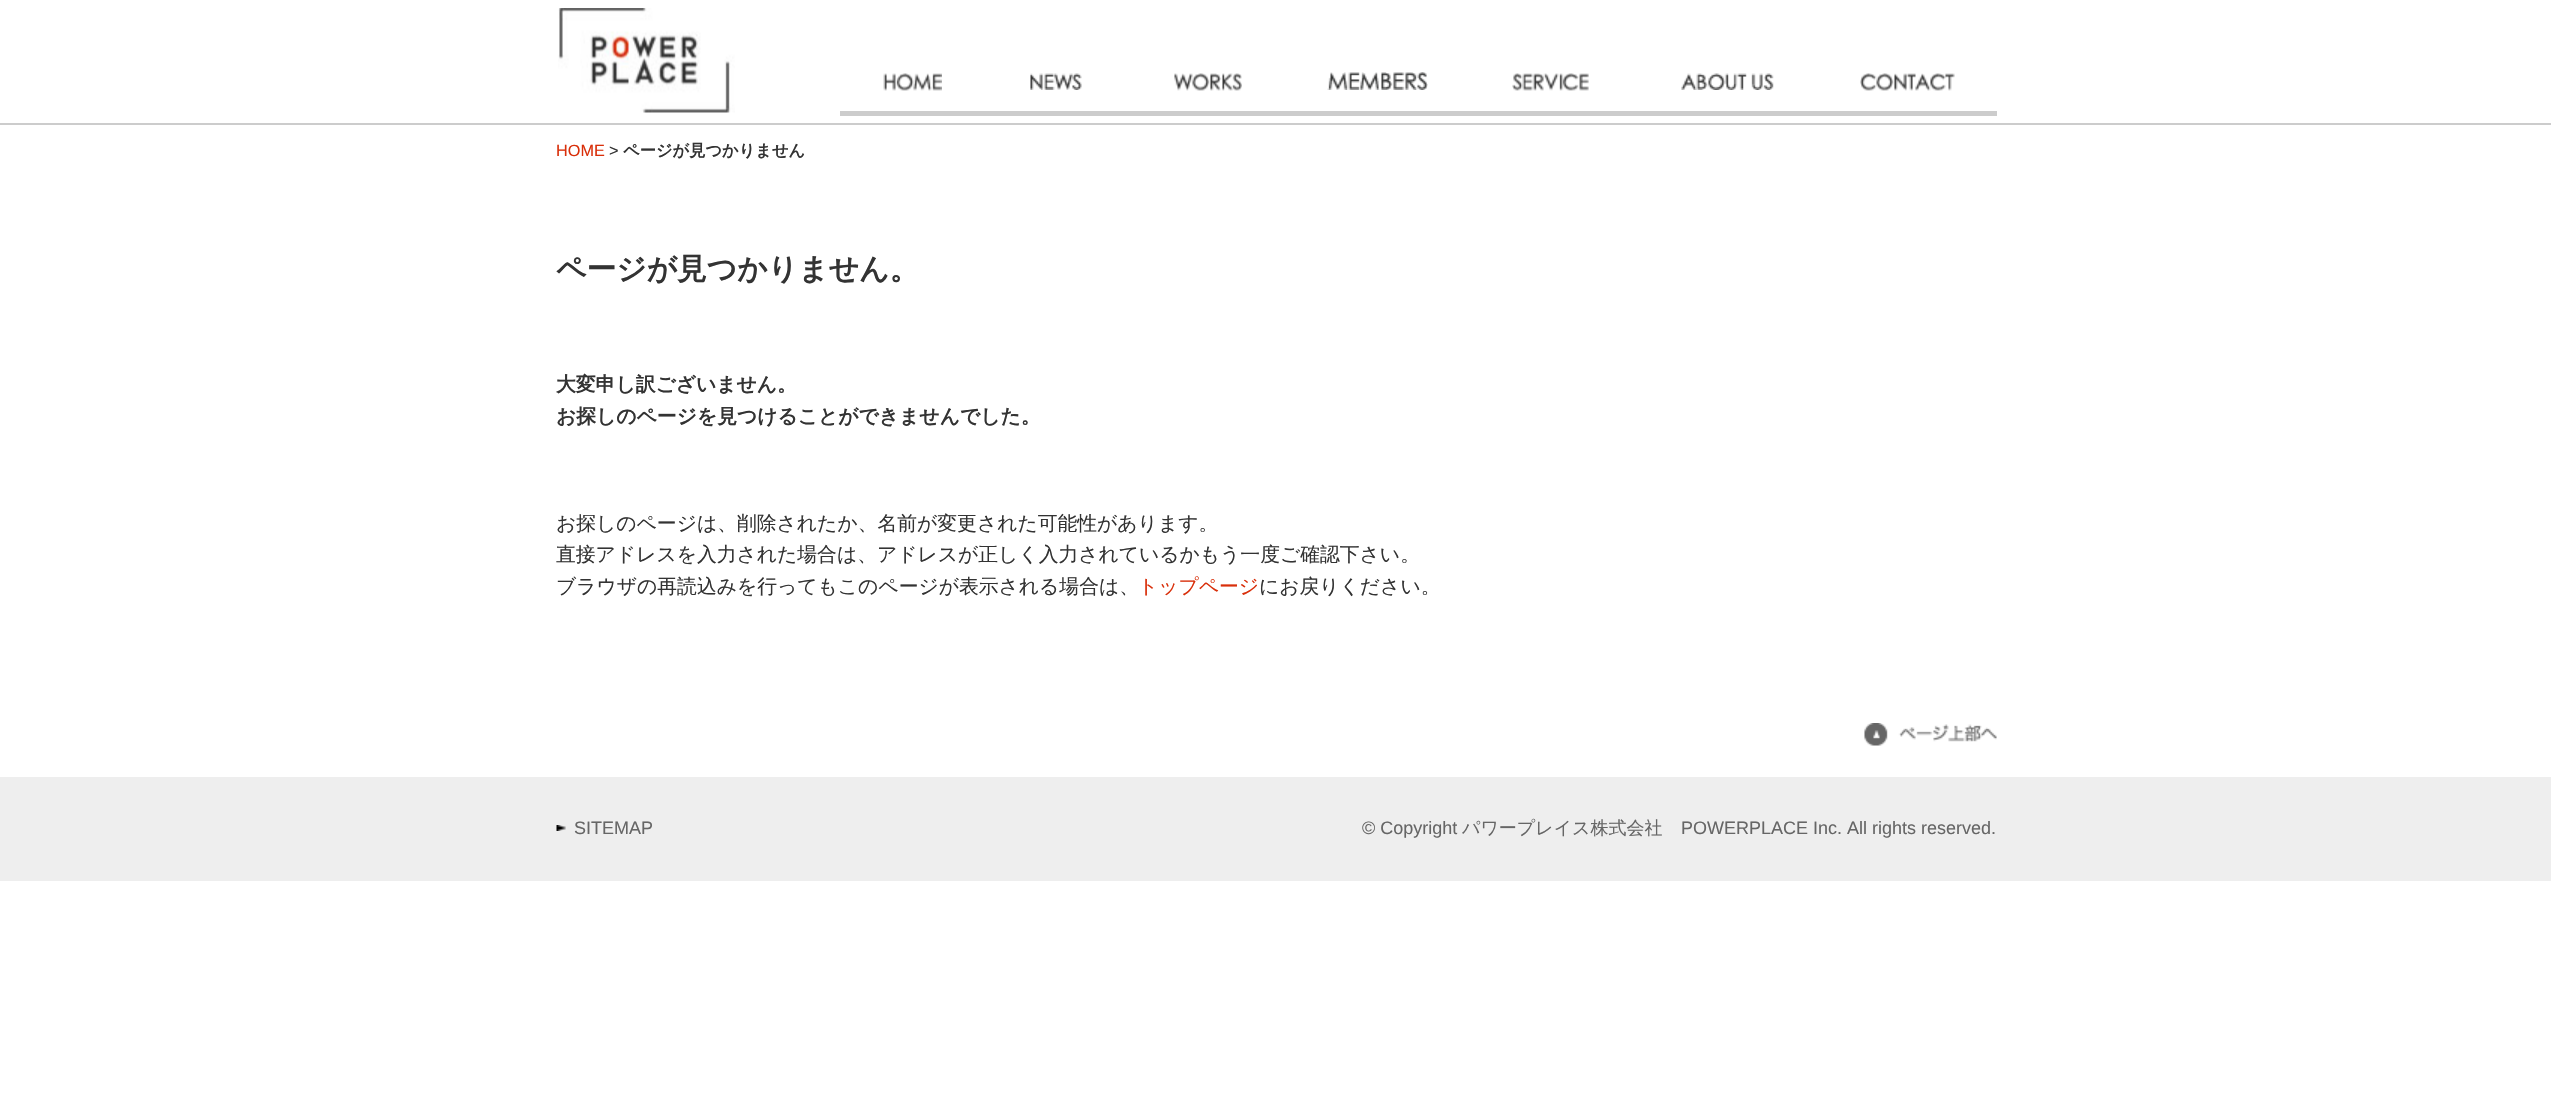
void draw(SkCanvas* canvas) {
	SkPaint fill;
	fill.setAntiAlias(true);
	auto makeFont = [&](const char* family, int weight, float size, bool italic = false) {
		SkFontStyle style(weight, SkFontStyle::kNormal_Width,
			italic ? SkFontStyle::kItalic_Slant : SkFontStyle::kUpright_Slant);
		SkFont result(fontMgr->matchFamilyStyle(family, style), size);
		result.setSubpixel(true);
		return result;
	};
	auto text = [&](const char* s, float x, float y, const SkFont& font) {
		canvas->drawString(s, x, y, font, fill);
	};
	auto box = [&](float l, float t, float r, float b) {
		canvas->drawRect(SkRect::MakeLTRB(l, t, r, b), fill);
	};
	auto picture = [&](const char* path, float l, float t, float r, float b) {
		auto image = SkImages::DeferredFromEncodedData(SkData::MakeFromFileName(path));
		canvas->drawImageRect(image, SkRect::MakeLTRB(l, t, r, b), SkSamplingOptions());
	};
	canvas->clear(0xFFFFFFFF);
	fill.setColor(0xFFCCCCCC);
	box(0, 123, 2551, 125);
	picture("image0.png", 558, 8, 735, 113);
	picture("image1.png", 1327, 72, 1428, 90);
	picture("image2.png", 883, 73, 942, 91);
	box(840, 111, 1997, 116);
	picture("image3.png", 1030, 73, 1082, 90);
	picture("image4.png", 1174, 73, 1242, 91);
	picture("image5.png", 1512, 73, 1589, 91);
	picture("image6.png", 1681, 73, 1774, 90);
	picture("image7.png", 1860, 73, 1955, 91);
	picture("image8.png", 1864, 723, 1997, 746);
	fill.setColor(0xFFEEEEEE);
	box(0, 777, 2551, 881);
	picture("image9.png", 556, 825, 566, 831);
	auto font1 = makeFont("Liberation Sans", 400, 16.25f);
	fill.setColor(0xFFD92F0A);
	text("HOME", 556, 156, font1);
	fill.setColor(0xFF333333);
	text(">", 609, 156, font1);
	auto font2 = makeFont("WenQuanYi Zen Hei", 700, 16.25f);
	text("ページが見つかりません", 623, 156, font2);
	auto font3 = makeFont("WenQuanYi Zen Hei", 700, 29.75f);
	text("ページが見つかりません。", 556, 279, font3);
	auto font4 = makeFont("WenQuanYi Zen Hei", 700, 19.8f);
	text("大変申し訳ございません。", 556, 391, font4);
	text("お探しのページを見つけることができませんでした。", 556, 423, font4);
	auto font5 = makeFont("WenQuanYi Zen Hei", 500, 19.8f);
	text("お探しのページは、削除されたか、名前が変更された可能性があります。", 556, 530, font5);
	text("直接アドレスを入力された場合は、アドレスが正しく入力されているかもう一度ご確認下さい。", 556, 561, font5);
	text("ブラウザの再読込みを行ってもこのページが表示される場合は、", 556, 593, font5);
	fill.setColor(0xFFD92F0A);
	text("トップページ", 1138, 593, font5);
	fill.setColor(0xFF333333);
	text("にお戻りください。", 1259, 593, font5);
	auto font6 = makeFont("Liberation Sans", 400, 18);
	fill.setColor(0xFF666666);
	text("SITEMAP", 574, 834, font6);
	text("© Copyright", 1362, 834, font6);
	auto font7 = makeFont("WenQuanYi Zen Hei", 500, 18);
	text("パワープレイス株式会社", 1462, 834, font7);
	text("POWERPLACE Inc. All rights reserved.", 1681, 834, font6);
}
